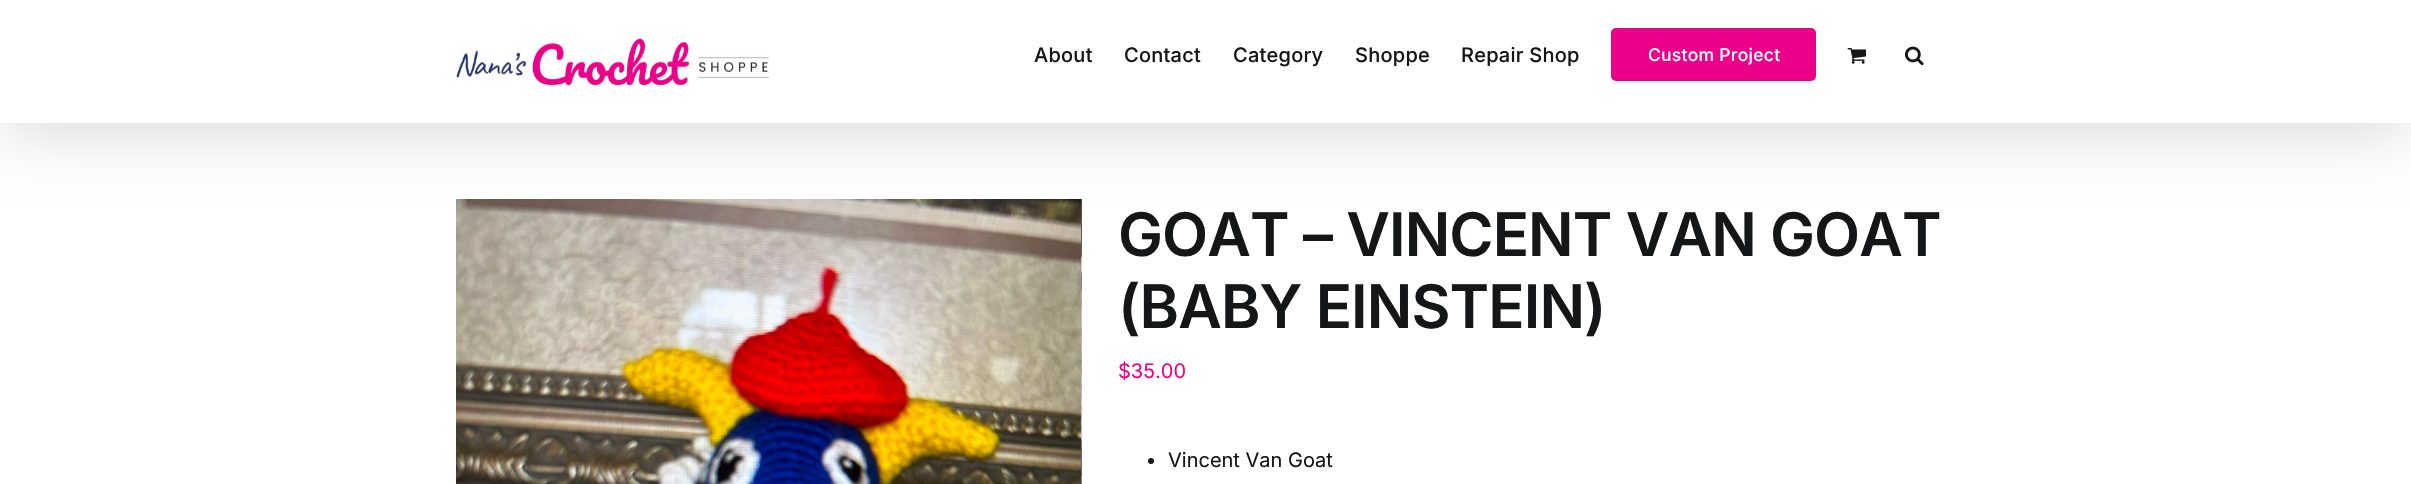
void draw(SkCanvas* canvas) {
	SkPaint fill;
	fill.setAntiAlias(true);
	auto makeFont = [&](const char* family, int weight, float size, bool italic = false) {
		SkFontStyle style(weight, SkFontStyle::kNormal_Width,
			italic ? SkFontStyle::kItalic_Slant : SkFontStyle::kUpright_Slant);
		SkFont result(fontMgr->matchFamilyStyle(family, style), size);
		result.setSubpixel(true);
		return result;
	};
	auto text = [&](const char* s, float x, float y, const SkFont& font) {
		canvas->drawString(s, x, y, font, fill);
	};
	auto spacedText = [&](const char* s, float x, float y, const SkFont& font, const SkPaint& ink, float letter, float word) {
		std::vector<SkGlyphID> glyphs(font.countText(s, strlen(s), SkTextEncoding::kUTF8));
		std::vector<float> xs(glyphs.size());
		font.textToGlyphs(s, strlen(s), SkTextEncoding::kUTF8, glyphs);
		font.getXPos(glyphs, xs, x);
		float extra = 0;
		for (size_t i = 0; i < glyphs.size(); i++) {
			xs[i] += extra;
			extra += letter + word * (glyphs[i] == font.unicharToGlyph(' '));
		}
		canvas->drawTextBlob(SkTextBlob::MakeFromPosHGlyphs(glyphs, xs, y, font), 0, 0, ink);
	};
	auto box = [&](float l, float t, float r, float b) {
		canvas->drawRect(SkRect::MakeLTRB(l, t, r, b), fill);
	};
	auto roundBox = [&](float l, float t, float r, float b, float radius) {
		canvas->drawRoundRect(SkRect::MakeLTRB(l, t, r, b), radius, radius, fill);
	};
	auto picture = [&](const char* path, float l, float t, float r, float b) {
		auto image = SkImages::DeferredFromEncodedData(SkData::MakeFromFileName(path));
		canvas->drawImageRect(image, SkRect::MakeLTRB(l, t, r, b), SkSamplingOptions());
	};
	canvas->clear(0xFFFFFFFF);
	picture("image3.png", 456, 199, 1081, 484);
	picture("image4.png", 1081, 199, 1082, 484);
	fill.setColor(0x24000000);
	fill.setMaskFilter(SkMaskFilter::MakeBlur(kNormal_SkBlurStyle, 31));
	canvas->drawRect(SkRect::MakeLTRB(3, 15, 2409, 133), fill);
	fill.setMaskFilter(nullptr);
	fill.setColor(0xFFFFFFFF);
	box(0, 0, 2411, 123);
	picture("image0.png", 456, 38, 769, 85);
	fill.setColor(0xFFEC0089);
	roundBox(1611, 28, 1816, 81, 5);
	picture("image1.png", 1847, 48, 1867, 64);
	picture("image2.png", 1905, 46, 1924, 66);
	fill.setColor(0xFF141617);
	canvas->drawCircle(1151, 461, 3, fill);
	auto font1 = makeFont("Inter", 500, 20);
	spacedText("About", 1034, 62, font1, fill, 0.25f, 0);
	spacedText("Contact", 1124, 62, font1, fill, 0.25f, 0);
	spacedText("Category", 1233, 62, font1, fill, 0.25f, 0);
	spacedText("Shoppe", 1355, 62, font1, fill, 0.25f, 0);
	spacedText("Repair Shop", 1461, 62, font1, fill, 0.25f, 0);
	auto font2 = makeFont("Inter", 500, 17.5f);
	fill.setColor(0xFFFFFFFF);
	spacedText("Custom Project", 1648, 61, font2, fill, 0.25f, 0);
	auto font3 = makeFont("Inter", 600, 60);
	fill.setColor(0xFF141617);
	spacedText("GOAT – VINCENT VAN GOAT", 1118, 256, font3, fill, -0.9f, 0);
	spacedText("(BABY EINSTEIN)", 1118, 328, font3, fill, -0.9f, 0);
	auto font4 = makeFont("Inter", 400, 20);
	fill.setColor(0xFFEC0089);
	text("$35.00", 1118, 378, font4);
	fill.setColor(0xFF141617);
	text("Vincent Van Goat", 1168, 467, font4);
}
